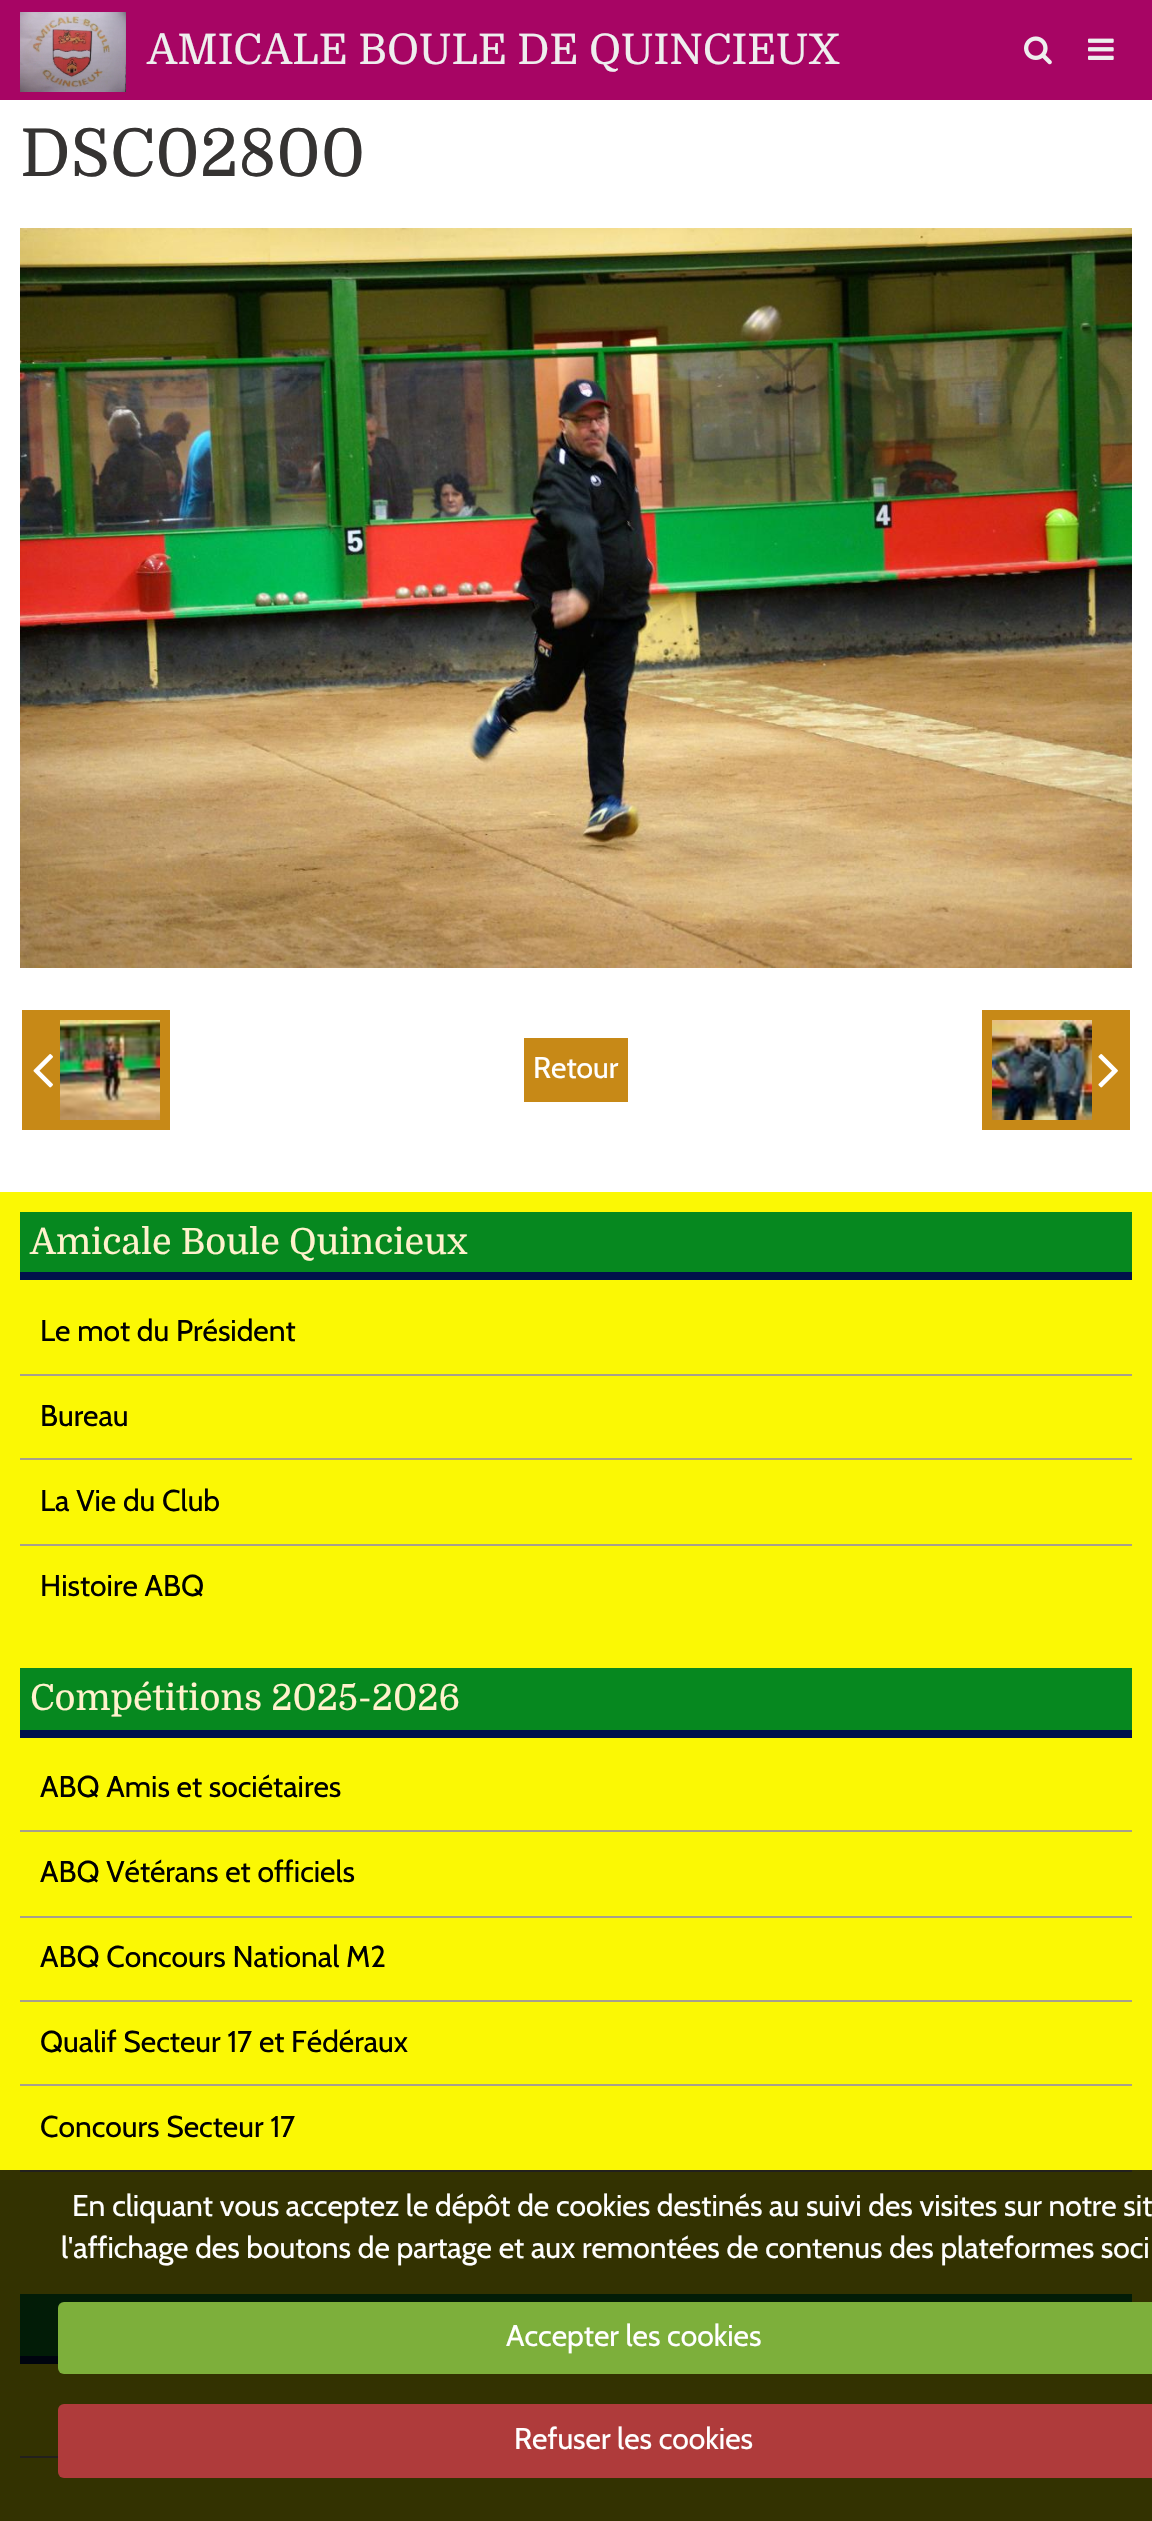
void draw(SkCanvas* canvas) {
	SkPaint fill;
	fill.setAntiAlias(true);
	auto makeFont = [&](const char* family, int weight, float size, bool italic = false) {
		SkFontStyle style(weight, SkFontStyle::kNormal_Width,
			italic ? SkFontStyle::kItalic_Slant : SkFontStyle::kUpright_Slant);
		SkFont result(fontMgr->matchFamilyStyle(family, style), size);
		result.setSubpixel(true);
		return result;
	};
	auto text = [&](const char* s, float x, float y, const SkFont& font) {
		canvas->drawString(s, x, y, font, fill);
	};
	auto box = [&](float l, float t, float r, float b) {
		canvas->drawRect(SkRect::MakeLTRB(l, t, r, b), fill);
	};
	auto roundBox = [&](float l, float t, float r, float b, float radius) {
		canvas->drawRoundRect(SkRect::MakeLTRB(l, t, r, b), radius, radius, fill);
	};
	auto picture = [&](const char* path, float l, float t, float r, float b) {
		auto image = SkImages::DeferredFromEncodedData(SkData::MakeFromFileName(path));
		canvas->drawImageRect(image, SkRect::MakeLTRB(l, t, r, b), SkSamplingOptions());
	};
	canvas->clear(0xFFFFFFFF);
	fill.setColor(0xFFA70564);
	box(0, 0, 1152, 100);
	picture("image0.png", 20, 12, 126, 92);
	picture("image1.png", 1024, 36, 1052, 65);
	picture("image2.png", 1088, 38, 1114, 60);
	picture("image3.png", 20, 228, 1132, 968);
	fill.setColor(0xFFC78917);
	box(22, 1010, 170, 1130);
	picture("image4.png", 33, 1054, 53, 1088);
	picture("image5.png", 60, 1020, 160, 1120);
	box(524, 1038, 628, 1102);
	box(982, 1010, 1130, 1130);
	picture("image6.png", 992, 1020, 1092, 1120);
	picture("image7.png", 1098, 1054, 1118, 1088);
	fill.setColor(0xFFFBF804);
	box(0, 1192, 1152, 2521);
	fill.setColor(0xFF06881F);
	box(20, 1212, 1132, 1272);
	fill.setColor(0xFF00124B);
	box(20, 1272, 1132, 1280);
	fill.setColor(0xFFA79F8D);
	box(20, 1374, 1132, 1376);
	box(20, 1458, 1132, 1460);
	box(20, 1544, 1132, 1546);
	fill.setColor(0xFF06881F);
	box(20, 1668, 1132, 1730);
	fill.setColor(0xFF00124B);
	box(20, 1730, 1132, 1738);
	fill.setColor(0xFFA79F8D);
	box(20, 1830, 1132, 1832);
	box(20, 1916, 1132, 1918);
	box(20, 2000, 1132, 2002);
	box(20, 2084, 1132, 2086);
	box(20, 2170, 1132, 2172);
	fill.setColor(0xFF06881F);
	box(20, 2294, 1132, 2356);
	fill.setColor(0xFF00124B);
	box(20, 2356, 58, 2364);
	fill.setColor(0xFFA79F8D);
	box(20, 2456, 58, 2458);
	fill.setColor(0xCC000000);
	box(0, 2170, 1152, 2521);
	fill.setColor(0xFF7DAF3B);
	roundBox(58, 2302, 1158, 2374, 6);
	fill.setColor(0xFFAF3B3B);
	roundBox(58, 2404, 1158, 2478, 6);
	auto font1 = makeFont("Domine", 400, 42);
	fill.setColor(0xFFEEEEEE);
	text("AMICALE BOULE DE QUINCIEUX", 147, 64, font1);
	auto font2 = makeFont("Domine", 400, 66);
	fill.setColor(0xFF353332);
	text("DSC02800", 20, 176, font2);
	auto font3 = makeFont("Cabin", 400, 30);
	fill.setColor(0xFFFFFFFF);
	text("Retour", 533, 1078, font3);
	auto font4 = makeFont("Domine", 400, 36);
	fill.setColor(0xFFFFF2CC);
	text("Amicale Boule Quincieux", 30, 1254, font4);
	fill.setColor(0xFF000000);
	text("Le mot du Président", 40, 1341, font3);
	text("Bureau", 40, 1426, font3);
	text("La Vie du Club", 40, 1511, font3);
	text("Histoire ABQ", 40, 1596, font3);
	fill.setColor(0xFFFFF2CC);
	text("Compétitions 2025-2026", 30, 1710, font4);
	fill.setColor(0xFF000000);
	text("ABQ Amis et sociétaires", 40, 1797, font3);
	text("ABQ Vétérans et officiels", 40, 1882, font3);
	text("ABQ Concours National M2", 40, 1967, font3);
	text("Qualif Secteur 17 et Fédéraux", 40, 2052, font3);
	text("Concours Secteur 17", 40, 2137, font3);
	fill.setColor(0xFFFFFFFF);
	text("En cliquant vous acceptez le dépôt de cookies destinés au suivi des visites sur notre sit", 72, 2216, font3);
	text("l'affichage des boutons de partage et aux remontées de contenus des plateformes soci", 61, 2258, font3);
	text("Accepter les cookies", 506, 2346, font3);
	text("Refuser les cookies", 514, 2449, font3);
}
